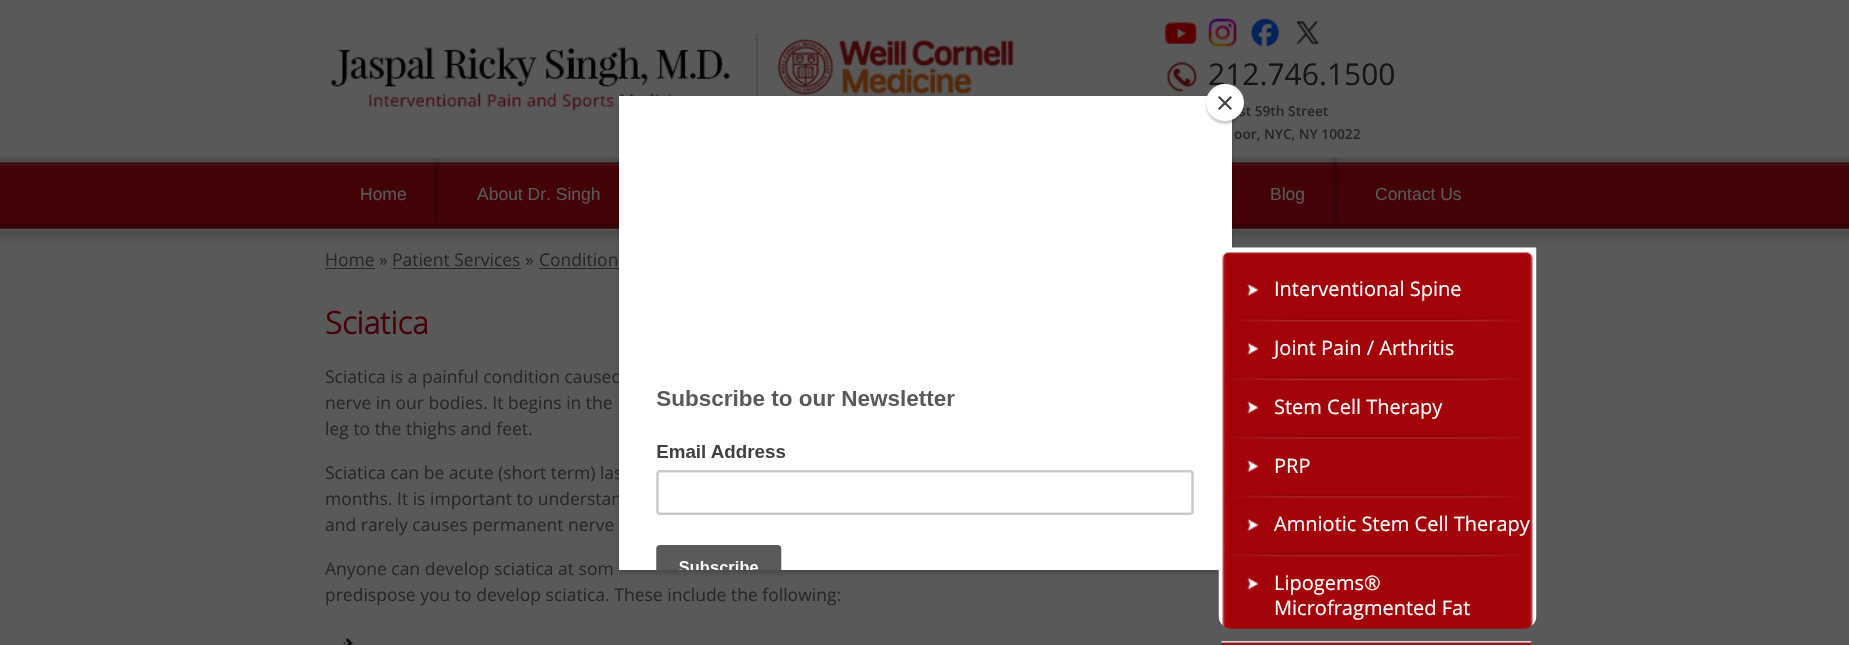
void draw(SkCanvas* canvas) {
	SkPaint fill;
	fill.setAntiAlias(true);
	auto makeFont = [&](const char* family, int weight, float size, bool italic = false) {
		SkFontStyle style(weight, SkFontStyle::kNormal_Width,
			italic ? SkFontStyle::kItalic_Slant : SkFontStyle::kUpright_Slant);
		SkFont result(fontMgr->matchFamilyStyle(family, style), size);
		result.setSubpixel(true);
		return result;
	};
	auto text = [&](const char* s, float x, float y, const SkFont& font) {
		canvas->drawString(s, x, y, font, fill);
	};
	auto box = [&](float l, float t, float r, float b) {
		canvas->drawRect(SkRect::MakeLTRB(l, t, r, b), fill);
	};
	auto roundBox = [&](float l, float t, float r, float b, float radius) {
		canvas->drawRoundRect(SkRect::MakeLTRB(l, t, r, b), radius, radius, fill);
	};
	auto picture = [&](const char* path, float l, float t, float r, float b) {
		auto image = SkImages::DeferredFromEncodedData(SkData::MakeFromFileName(path));
		canvas->drawImageRect(image, SkRect::MakeLTRB(l, t, r, b), SkSamplingOptions());
	};
	canvas->clear(0xFF595959);
	fill.setStyle(SkPaint::kStroke_Style);
	fill.setStrokeWidth(1.2f);
	fill.setColor(0xFF333333);
	fill.setPathEffect(SkDashPathEffect::Make({{1.25f, 1.25f}}, 0));
	canvas->drawPath(SkPathBuilder().moveTo(757, 34).lineTo(757, 120).detach(), fill);
	fill.setPathEffect(nullptr);
	picture("image0.png", 331, 47, 731, 112);
	picture("image1.png", 777, 38, 1014, 96);
	picture("image2.png", 1165, 22, 1197, 44);
	picture("image3.png", 1208, 18, 1237, 47);
	picture("image4.png", 1251, 18, 1279, 47);
	picture("image5.png", 1296, 21, 1319, 44);
	picture("image6.png", 1167, 62, 1197, 92);
	picture("image7.png", 0, 157, 1849, 230);
	picture("image8.png", 432, 157, 441, 224);
	picture("image9.png", 1232, 157, 1235, 224);
	picture("image10.png", 1330, 157, 1340, 224);
	picture("image11.png", 0, 230, 1849, 244);
	fill.setStyle(SkPaint::kFill_Style);
	fill.setColor(0xFF282828);
	box(325, 268, 375, 269);
	box(393, 268, 521, 269);
	box(539, 268, 619, 269);
	picture("image12.png", 343, 638, 353, 645);
	picture("image22.png", 1221, 641, 1532, 645);
	fill.setColor(0x33000000);
	fill.setMaskFilter(SkMaskFilter::MakeBlur(kNormal_SkBlurStyle, 2.5f));
	canvas->drawRect(SkRect::MakeLTRB(619, 99, 1231, 573), fill);
	fill.setMaskFilter(nullptr);
	auto font1 = makeFont("Open Sans", 400, 30);
	fill.setColor(0xFF171413);
	text("212.746.1500", 1208, 85, font1);
	auto font2 = makeFont("Open Sans", 600, 13.75f);
	fill.setColor(0xFF272727);
	text("st 59th Street", 1239, 116, font2);
	text("oor, NYC, NY 10022", 1234, 139, font2);
	auto font3 = makeFont("Liberation Sans", 400, 17.5f);
	fill.setColor(0xFF595959);
	text("Home", 360, 200, font3);
	text("About Dr. Singh", 477, 200, font3);
	text("Blog", 1270, 200, font3);
	text("Contact Us", 1375, 200, font3);
	auto font4 = makeFont("Open Sans", 400, 17.5f);
	fill.setColor(0xFF272727);
	text("Home", 325, 266, font4);
	text("»", 379, 266, font4);
	text("Patient Services", 392, 266, font4);
	text("»", 525, 266, font4);
	text("Condition", 539, 266, font4);
	auto font5 = makeFont("Open Sans", 700, 31);
	fill.setColor(0xFF440308);
	text("Sciatica", 325, 334, font5);
	fill.setColor(0xFF272727);
	text("Sciatica is a painful condition caused", 325, 383, font4);
	text("nerve in our bodies. It begins in the", 325, 409, font4);
	text("leg to the thighs and feet.", 325, 435, font4);
	text("Sciatica can be acute (short term) las", 325, 479, font4);
	text("months. It is important to understan", 325, 505, font4);
	text("and rarely causes permanent nerve", 325, 531, font4);
	text("Anyone can develop sciatica at som", 325, 575, font4);
	text("predispose you to develop sciatica. These include the following:", 325, 601, font4);
	picture("image23.png", 619, 96, 1232, 570);
	picture("image13.png", 1218, 247, 1537, 629);
	auto font6 = makeFont("Open Sans", 400, 20);
	fill.setColor(0xFFFFFFFF);
	text("Microfragmented Fat", 1274, 615, font6);
	text("Lipogems®", 1274, 590, font6);
	picture("image17.png", 1247, 577, 1259, 590);
	text("Amniotic Stem Cell Therapy", 1274, 531, font6);
	picture("image15.png", 1247, 518, 1259, 532);
	picture("image14.png", 1225, 550, 1522, 560);
	text("PRP", 1274, 473, font6);
	picture("image21.png", 1247, 460, 1259, 473);
	picture("image20.png", 1225, 491, 1522, 501);
	text("Stem Cell Therapy", 1274, 414, font6);
	picture("image19.png", 1247, 401, 1259, 414);
	picture("image18.png", 1225, 432, 1521, 443);
	text("Joint Pain / Arthritis", 1274, 355, font6);
	picture("image17.png", 1247, 342, 1259, 355);
	picture("image16.png", 1225, 374, 1521, 384);
	text("Interventional Spine", 1274, 296, font6);
	picture("image15.png", 1247, 283, 1259, 297);
	picture("image14.png", 1225, 315, 1522, 325);
	fill.setColor(0x33000000);
	fill.setMaskFilter(SkMaskFilter::MakeBlur(kNormal_SkBlurStyle, 1));
	canvas->drawRoundRect(SkRect::MakeLTRB(1206, 86, 1244, 124), 19, 19, fill);
	fill.setMaskFilter(nullptr);
	fill.setColor(0xFFFFFFFF);
	roundBox(1206, 84, 1244, 121, 18.5f);
	fill.setColor(0xFF414141);
	canvas->drawPath(SkPathBuilder().moveTo(1230.5f, 96).lineTo(1232, 97.5f).lineTo(1219.5f, 110).lineTo(1218, 108.5f).close().detach(), fill);
	canvas->drawPath(SkPathBuilder().moveTo(1218, 97.5f).lineTo(1219.5f, 96).lineTo(1232, 108.5f).lineTo(1230.5f, 110).close().detach(), fill);
}
